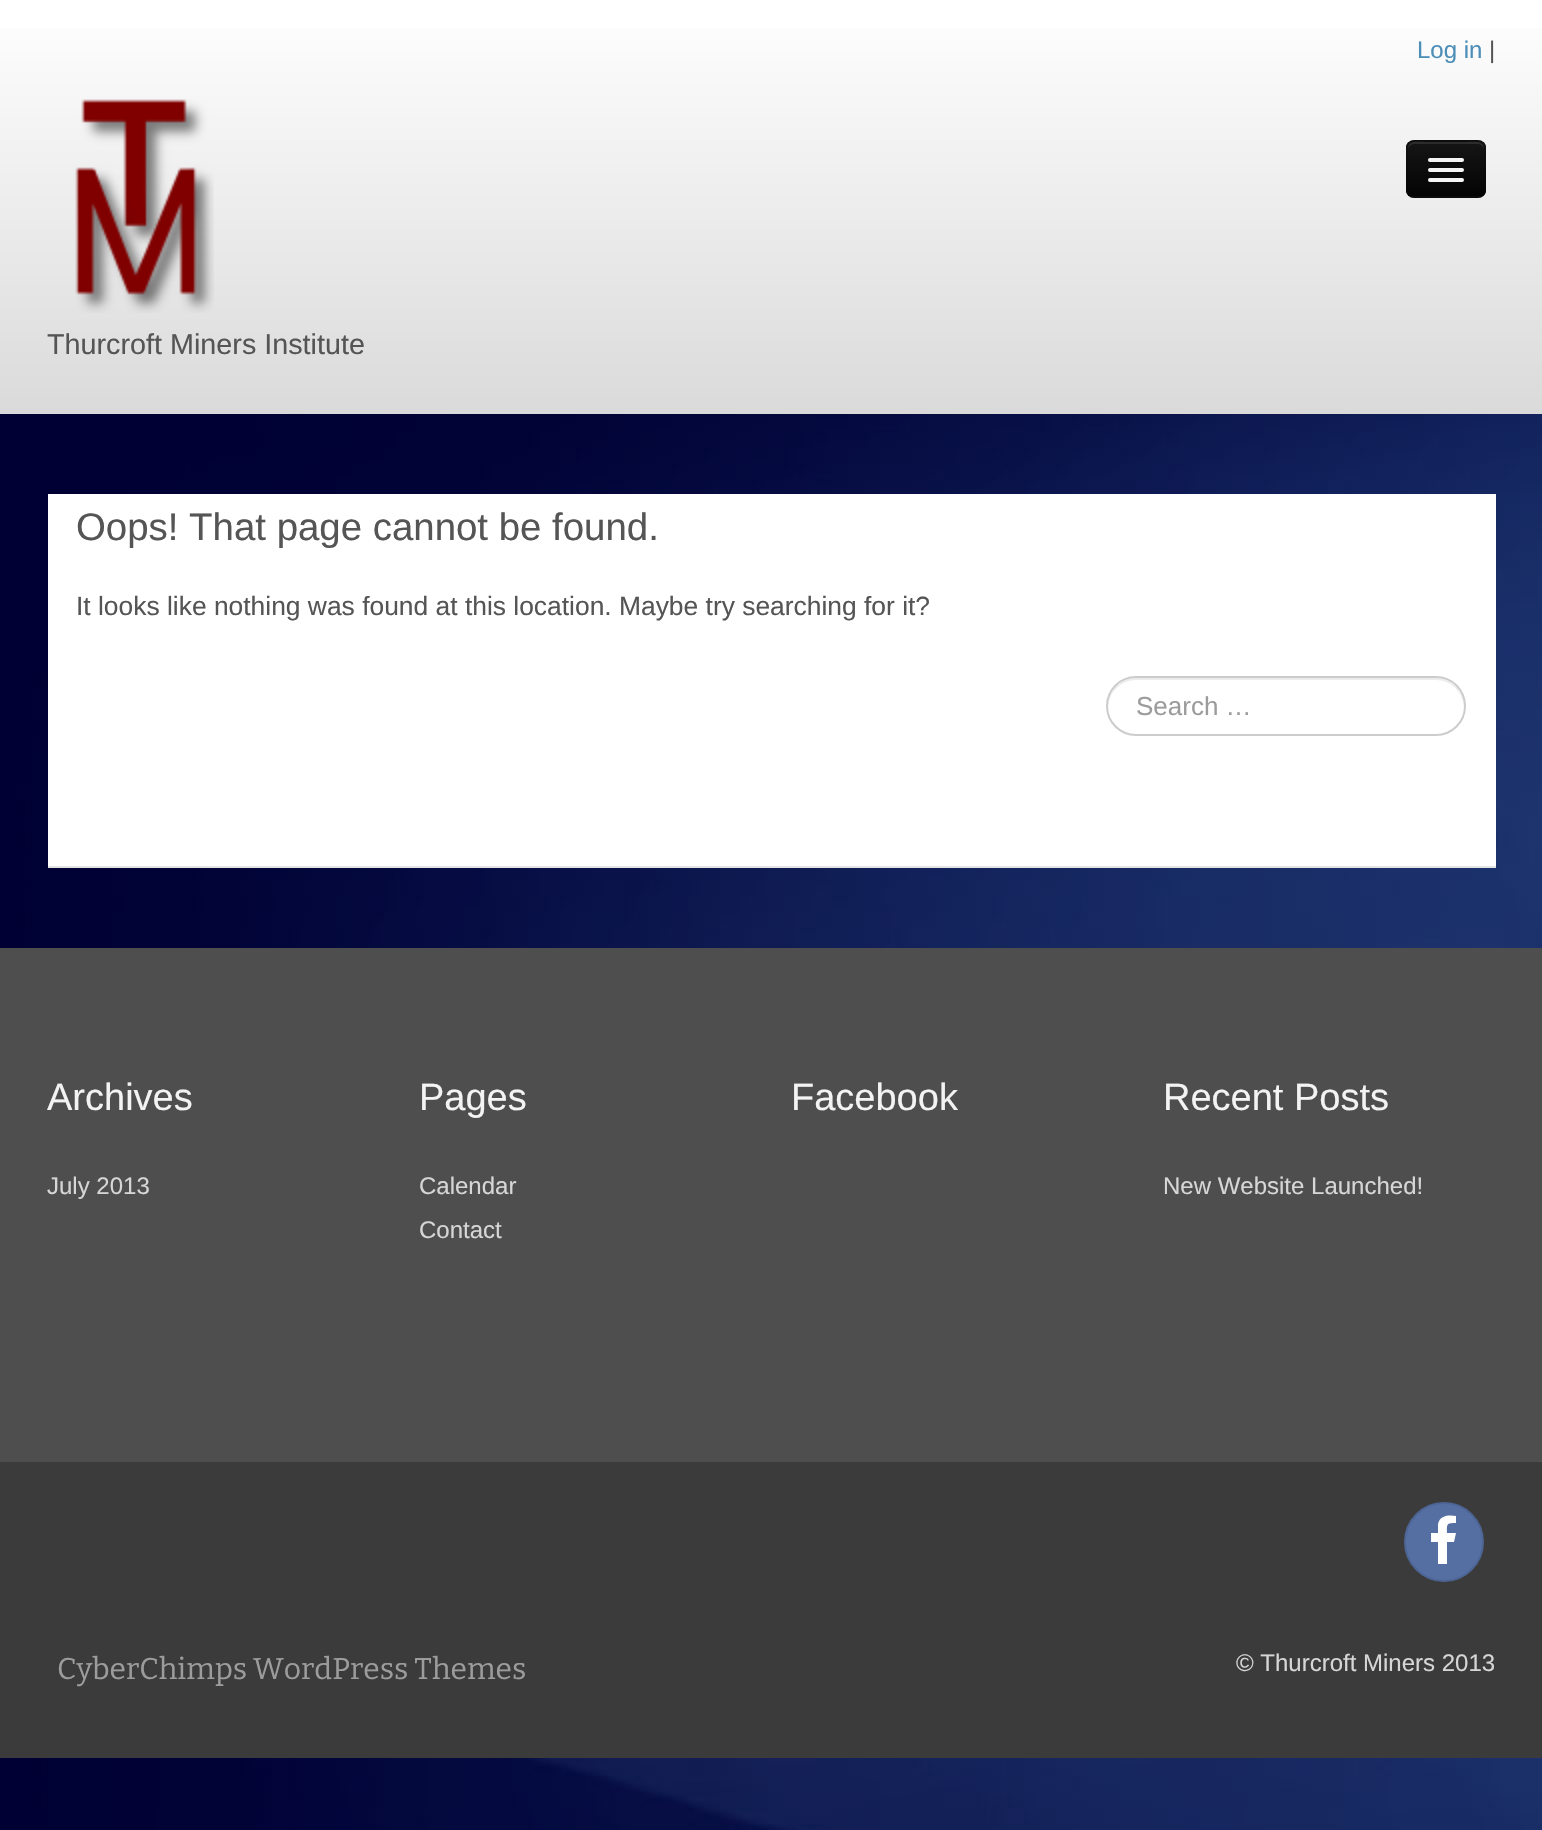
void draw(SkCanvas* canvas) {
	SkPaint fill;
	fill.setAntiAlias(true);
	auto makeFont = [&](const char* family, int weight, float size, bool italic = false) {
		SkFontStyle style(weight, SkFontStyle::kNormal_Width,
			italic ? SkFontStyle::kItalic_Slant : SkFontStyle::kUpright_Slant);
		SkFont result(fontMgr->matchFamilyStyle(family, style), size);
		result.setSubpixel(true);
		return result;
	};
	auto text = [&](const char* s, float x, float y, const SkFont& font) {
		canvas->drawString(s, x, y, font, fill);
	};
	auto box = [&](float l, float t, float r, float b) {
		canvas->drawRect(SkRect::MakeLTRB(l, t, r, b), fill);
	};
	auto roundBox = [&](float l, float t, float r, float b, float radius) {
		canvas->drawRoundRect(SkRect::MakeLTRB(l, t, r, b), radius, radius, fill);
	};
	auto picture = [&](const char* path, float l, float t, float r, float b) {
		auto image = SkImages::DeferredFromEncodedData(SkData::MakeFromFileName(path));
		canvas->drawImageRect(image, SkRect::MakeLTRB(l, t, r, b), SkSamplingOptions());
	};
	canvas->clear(0xFFFFFFFF);
	picture("image0.png", 0, 414, 1542, 1830);
	{
		const SkColor colors[] = {0xFFFFFFFF, 0xFFDADADA};
		const float stops[] = {0, 1};
		const SkPoint ends[] = {{771, 0}, {771, 414}};
		fill.setShader(SkGradientShader::MakeLinear(ends, colors, stops, 2, SkTileMode::kClamp));
		fill.setAlpha(255);
	}
	box(0, 28, 1542, 414);
	fill.setShader(nullptr);
	fill.setColor(0xFF0E0E0E);
	roundBox(1406, 140, 1486, 198, 8);
	canvas->save();
	canvas->clipPath(SkPathBuilder().moveTo(1414, 140).lineTo(1478, 140).cubicTo(1482.5f, 140, 1486, 143.5f, 1486, 148).lineTo(1486, 190).cubicTo(1486, 194.5f, 1482.5f, 198, 1478, 198).lineTo(1414, 198).cubicTo(1409.5f, 198, 1406, 194.5f, 1406, 190).lineTo(1406, 148).cubicTo(1406, 143.5f, 1409.5f, 140, 1414, 140).close().detach(), true);
	{
		const SkColor colors[] = {0xFF151515, 0xFF040404};
		const float stops[] = {0, 1};
		const SkPoint ends[] = {{1446, 142}, {1446, 196}};
		fill.setShader(SkGradientShader::MakeLinear(ends, colors, stops, 2, SkTileMode::kClamp));
		fill.setAlpha(255);
	}
	box(1406, 142, 1486, 196);
	canvas->restore();
	fill.setShader(nullptr);
	fill.setColor(0xFF2C2C2C);
	canvas->drawPath(SkPathBuilder().moveTo(1414, 144).lineTo(1478, 144).cubicTo(1481, 144, 1484, 147, 1484, 150).cubicTo(1484, 140, 1476, 142, 1467, 142).lineTo(1425, 142).cubicTo(1416, 142, 1408, 140, 1408, 150).cubicTo(1408, 147, 1411, 144, 1414, 144).close().detach(), fill);
	fill.setStyle(SkPaint::kStroke_Style);
	fill.setStrokeWidth(2);
	fill.setColor(0x40000000);
	canvas->drawPath(SkPathBuilder().moveTo(1483, 195).cubicTo(1481.5f, 196.5f, 1480, 197, 1478, 197).lineTo(1414, 197).cubicTo(1412, 197, 1410.5f, 196.5f, 1409, 195).detach(), fill);
	fill.setColor(0x1A000000);
	canvas->drawPath(SkPathBuilder().moveTo(1409, 195).cubicTo(1407.5f, 193.5f, 1407, 192, 1407, 190).lineTo(1407, 148).cubicTo(1407, 146, 1407.5f, 144.5f, 1409, 143).cubicTo(1410.5f, 141.5f, 1412, 141, 1414, 141).lineTo(1478, 141).cubicTo(1480, 141, 1481.5f, 141.5f, 1483, 143).cubicTo(1484.5f, 144.5f, 1485, 146, 1485, 148).lineTo(1485, 190).cubicTo(1485, 192, 1484.5f, 193.5f, 1483, 195).detach(), fill);
	fill.setStyle(SkPaint::kFill_Style);
	fill.setColor(0xFF0B0B0B);
	canvas->drawPath(SkPathBuilder().moveTo(1428.5f, 161).cubicTo(1426, 165, 1435, 164, 1435.5f, 164).lineTo(1456.5f, 164).cubicTo(1457, 164, 1466, 165, 1463.5f, 161).cubicTo(1463.5f, 161.5f, 1462.5f, 162, 1462, 162).lineTo(1430, 162).cubicTo(1429.5f, 162, 1428.5f, 161.5f, 1428.5f, 161).close().detach(), fill);
	fill.setColor(0xFFF5F5F5);
	roundBox(1428, 158, 1464, 162, 2);
	fill.setColor(0xFF080808);
	canvas->drawPath(SkPathBuilder().moveTo(1428.5f, 171).cubicTo(1426, 175, 1435, 174, 1435.5f, 174).lineTo(1456.5f, 174).cubicTo(1457, 174, 1466, 175, 1463.5f, 171).cubicTo(1463.5f, 171.5f, 1462.5f, 172, 1462, 172).lineTo(1430, 172).cubicTo(1429.5f, 172, 1428.5f, 171.5f, 1428.5f, 171).close().detach(), fill);
	fill.setColor(0xFFF5F5F5);
	roundBox(1428, 168, 1464, 172, 2);
	roundBox(1428, 178, 1464, 182, 2);
	picture("image1.png", 75, 99, 214, 313);
	fill.setColor(0xFFFFFFFF);
	box(48, 494, 1496, 866);
	fill.setColor(0xFFE4E4E4);
	box(48, 866, 1496, 868);
	fill.setColor(0xFFECECEC);
	canvas->drawPath(SkPathBuilder().moveTo(1136, 680).lineTo(1436, 680).cubicTo(1451, 680, 1463, 692, 1464, 707).lineTo(1464, 706).cubicTo(1464, 691, 1451, 678, 1436, 678).lineTo(1136, 678).cubicTo(1121, 678, 1108, 691, 1108, 706).lineTo(1108, 707).cubicTo(1109, 692, 1121, 680, 1136, 680).close().detach(), fill);
	fill.setStyle(SkPaint::kStroke_Style);
	fill.setColor(0xFFCCCCCC);
	canvas->drawRoundRect(SkRect::MakeLTRB(1107, 677, 1465, 735), 29, 29, fill);
	fill.setStyle(SkPaint::kFill_Style);
	fill.setColor(0xFF4E4E4E);
	box(0, 948, 1542, 1462);
	fill.setColor(0xFF3B3B3B);
	box(0, 1462, 1542, 1758);
	fill.setColor(0xFF556FA3);
	canvas->drawCircle(1444, 1542, 39, fill);
	fill.setStyle(SkPaint::kStroke_Style);
	fill.setColor(0xFF4D6595);
	canvas->drawCircle(1444, 1542, 39, fill);
	fill.setStyle(SkPaint::kFill_Style);
	fill.setColor(0xFFFFFFFF);
	canvas->drawPath(SkPathBuilder().moveTo(1456, 1516).lineTo(1456, 1523).cubicTo(1446, 1523, 1447, 1524, 1447, 1533).lineTo(1456, 1533).lineTo(1454, 1542).lineTo(1447, 1542).lineTo(1447, 1564).lineTo(1438, 1564).lineTo(1438, 1542).lineTo(1431, 1542).lineTo(1431, 1533).lineTo(1438, 1533).lineTo(1438, 1524).cubicTo(1440, 1515, 1449, 1515, 1456, 1516).close().detach(), fill);
	auto font1 = makeFont("Liberation Sans", 400, 24);
	fill.setColor(0xFF4C8EB8);
	text("Log in", 1417, 58, font1);
	fill.setColor(0xFF555555);
	text("|", 1489, 58, font1);
	auto font2 = makeFont("Liberation Sans", 400, 28.75f);
	text("Thurcroft Miners Institute", 47, 354, font2);
	auto font3 = makeFont("Liberation Sans", 400, 38.4f);
	text("Oops! That page cannot be found.", 76, 540, font3);
	auto font4 = makeFont("Liberation Sans", 400, 26.4f);
	text("It looks like nothing was found at this location. Maybe try searching for it?", 76, 615, font4);
	auto font5 = makeFont("Liberation Sans", 400, 26);
	fill.setColor(0xFF9B9C9B);
	text("Search …", 1136, 715, font5);
	auto font6 = makeFont("Liberation Sans", 400, 38);
	fill.setColor(0xFFF3F3F3);
	text("Archives", 47, 1110, font6);
	fill.setColor(0xFFD6D6D6);
	text("July 2013", 47, 1194, font1);
	fill.setColor(0xFFF3F3F3);
	text("Pages", 419, 1110, font6);
	fill.setColor(0xFFD6D6D6);
	text("Calendar", 419, 1194, font1);
	text("Contact", 419, 1238, font1);
	fill.setColor(0xFFF3F3F3);
	text("Facebook", 791, 1110, font6);
	text("Recent Posts", 1163, 1110, font6);
	fill.setColor(0xFFD6D6D6);
	text("New Website Launched!", 1163, 1194, font1);
	auto font7 = makeFont("Bitter", 100, 30);
	fill.setColor(0xFF9B9C9B);
	text("CyberChimps WordPress Themes", 57, 1679, font7);
	fill.setColor(0xFFD6D6D6);
	text("© Thurcroft Miners 2013", 1236, 1671, font1);
}
